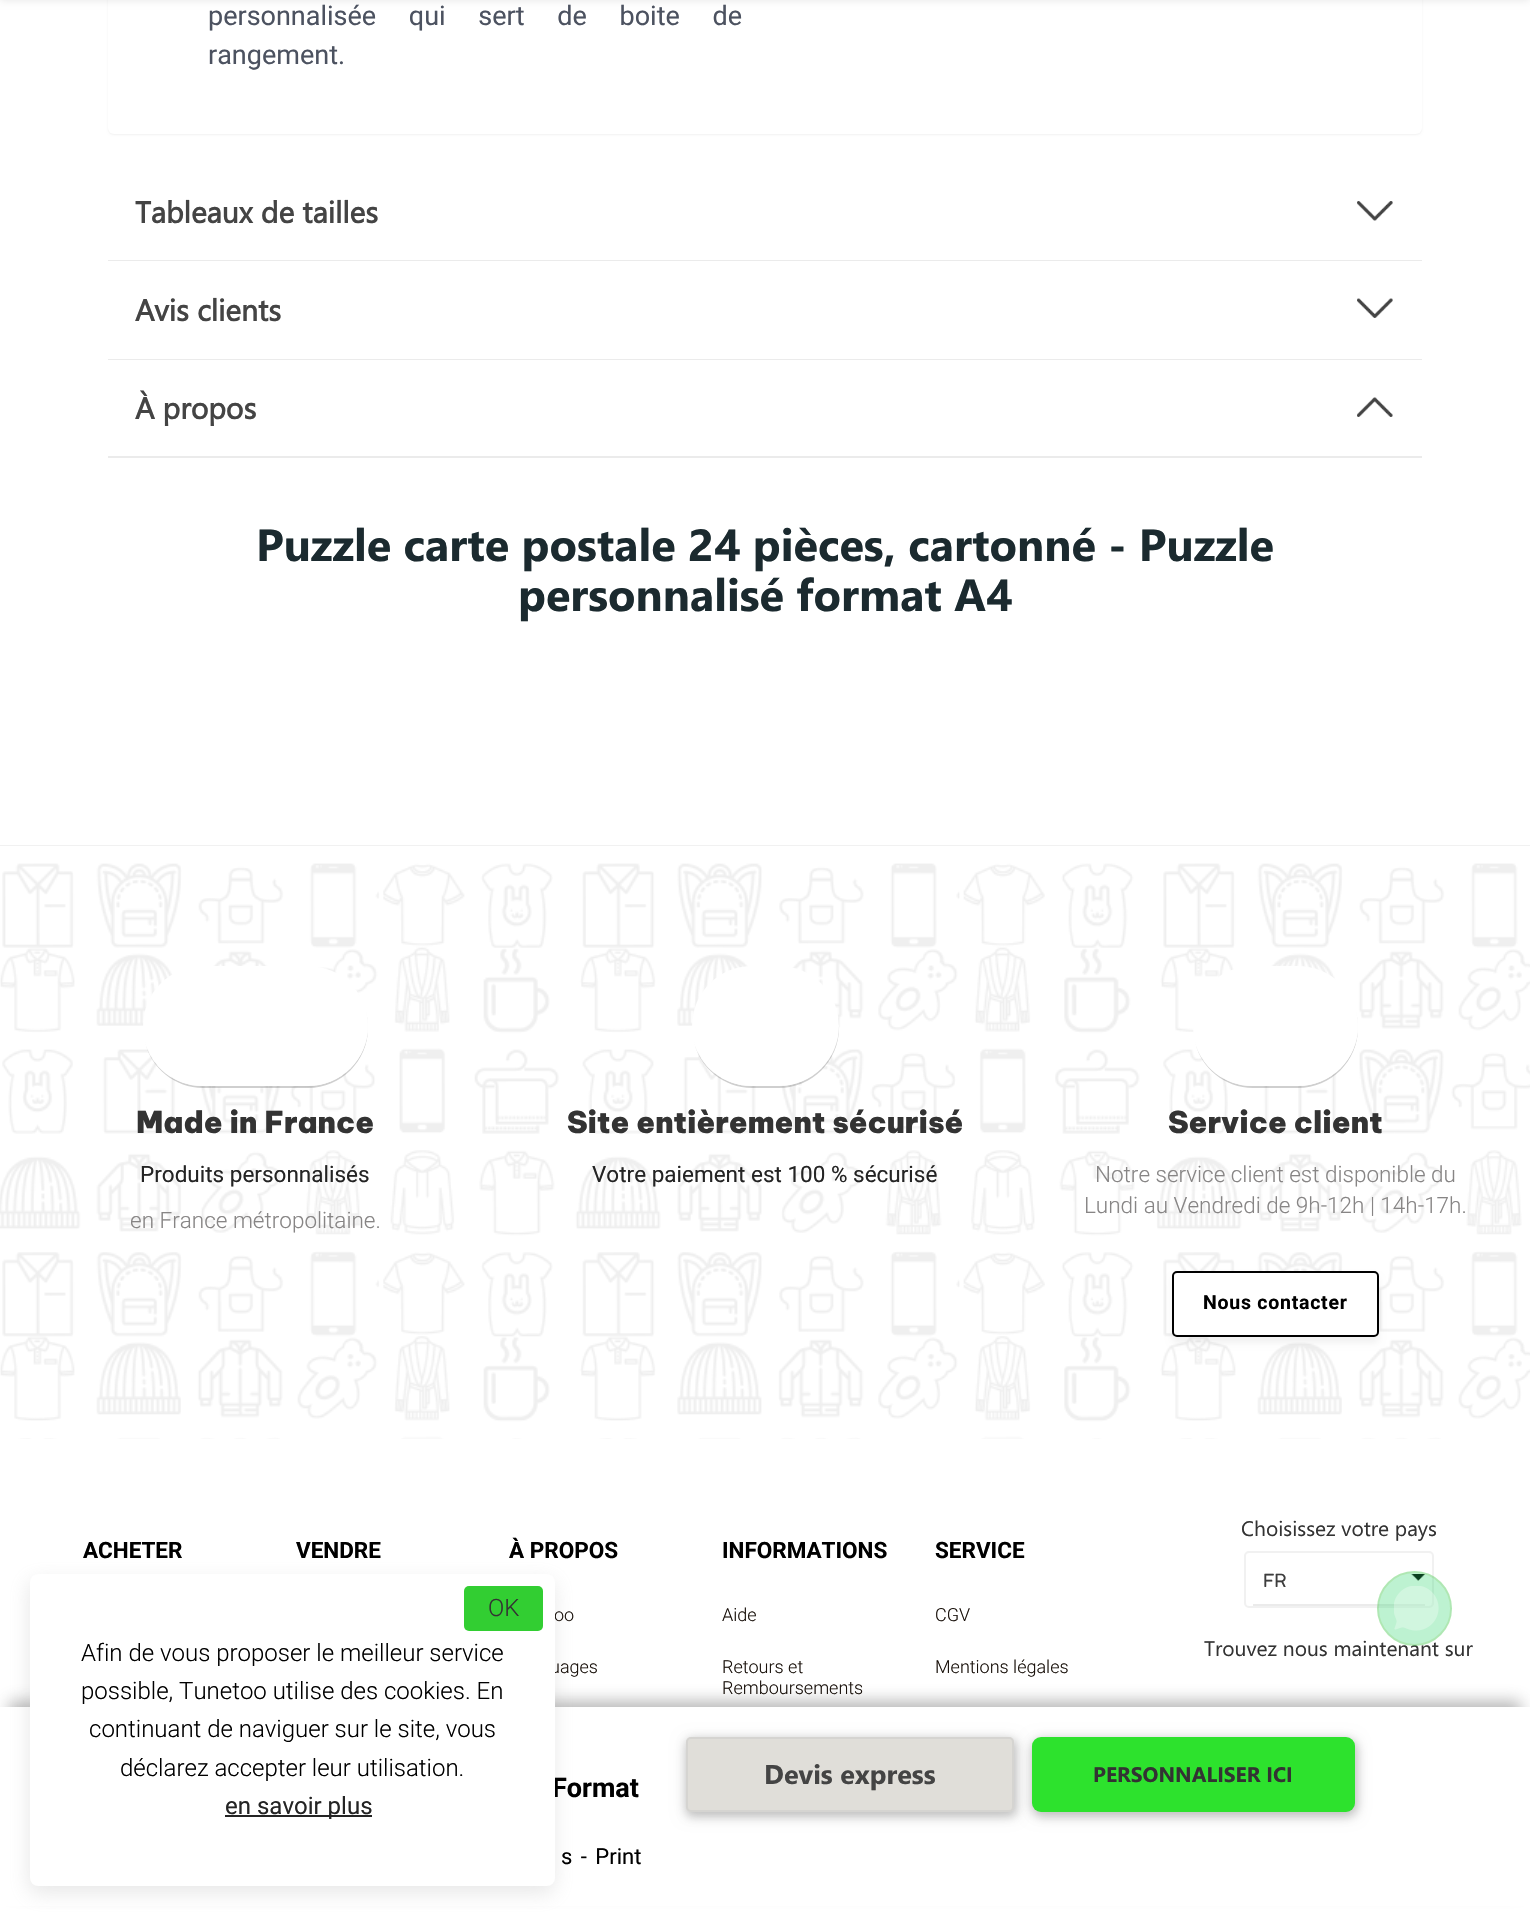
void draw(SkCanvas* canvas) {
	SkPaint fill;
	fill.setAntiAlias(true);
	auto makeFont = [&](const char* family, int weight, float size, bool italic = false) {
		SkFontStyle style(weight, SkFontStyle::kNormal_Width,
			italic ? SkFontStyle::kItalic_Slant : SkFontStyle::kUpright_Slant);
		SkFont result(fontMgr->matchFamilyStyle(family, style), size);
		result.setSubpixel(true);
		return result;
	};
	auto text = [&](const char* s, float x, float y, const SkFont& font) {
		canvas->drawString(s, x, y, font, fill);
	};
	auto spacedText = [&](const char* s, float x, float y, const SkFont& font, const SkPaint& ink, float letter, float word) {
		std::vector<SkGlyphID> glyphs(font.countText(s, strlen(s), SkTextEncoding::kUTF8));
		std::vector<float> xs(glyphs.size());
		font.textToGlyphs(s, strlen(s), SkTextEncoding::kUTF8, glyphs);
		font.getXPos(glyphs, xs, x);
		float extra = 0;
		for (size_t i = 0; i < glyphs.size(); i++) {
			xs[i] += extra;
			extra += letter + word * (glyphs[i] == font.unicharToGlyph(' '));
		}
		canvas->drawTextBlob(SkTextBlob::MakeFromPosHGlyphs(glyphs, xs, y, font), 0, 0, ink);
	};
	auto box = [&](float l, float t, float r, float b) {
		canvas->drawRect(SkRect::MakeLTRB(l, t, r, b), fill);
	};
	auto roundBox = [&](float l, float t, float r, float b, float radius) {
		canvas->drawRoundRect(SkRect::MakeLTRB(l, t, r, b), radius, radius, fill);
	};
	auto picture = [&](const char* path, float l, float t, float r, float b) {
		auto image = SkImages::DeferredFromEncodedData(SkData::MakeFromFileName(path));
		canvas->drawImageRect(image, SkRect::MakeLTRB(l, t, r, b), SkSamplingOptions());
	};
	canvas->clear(0xFFFFFFFF);
	fill.setColor(0x0D000000);
	fill.setMaskFilter(SkMaskFilter::MakeBlur(kNormal_SkBlurStyle, 1));
	canvas->drawRoundRect(SkRect::MakeLTRB(108, -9, 1422, 135), 6, 6, fill);
	fill.setMaskFilter(nullptr);
	fill.setColor(0xFFFFFFFF);
	roundBox(108, -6, 1422, 134, 6);
	fill.setColor(0x1A000000);
	fill.setMaskFilter(SkMaskFilter::MakeBlur(kNormal_SkBlurStyle, 4));
	canvas->drawRect(SkRect::MakeLTRB(0, -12, 1530, 0), fill);
	fill.setMaskFilter(nullptr);
	fill.setColor(0xFFEBEBEB);
	box(108, 260, 1422, 261);
	picture("image0.png", 1357, 201, 1393, 221);
	box(108, 359, 1422, 360);
	picture("image1.png", 1357, 298, 1393, 318);
	box(108, 456, 1422, 458);
	picture("image2.png", 1357, 397, 1393, 417);
	fill.setColor(0xFFF1F1F1);
	box(0, 845, 1530, 846);
	picture("image3.png", 0, 863, 1530, 1439);
	fill.setColor(0x30000000);
	canvas->drawPath(SkPathBuilder().moveTo(145, 1042).cubicTo(151, 1068, 175, 1088, 203, 1088).lineTo(308, 1088).cubicTo(341, 1088, 368, 1061, 368, 1028).cubicTo(368, 1023, 367, 1017, 366, 1012).cubicTo(367, 1017, 368, 1021, 368, 1026).cubicTo(368, 1059, 341, 1086, 308, 1086).lineTo(202, 1086).cubicTo(175, 1086, 151, 1067, 145, 1042).close().detach(), fill);
	fill.setColor(0xFFFFFFFF);
	roundBox(143, 966, 368, 1086, 60);
	fill.setColor(0x30000000);
	canvas->drawPath(SkPathBuilder().moveTo(694, 1042).cubicTo(700, 1068, 724, 1088, 752, 1088).lineTo(779, 1088).cubicTo(812, 1088, 839, 1061, 839, 1028).cubicTo(839, 1023, 838, 1017, 837, 1012).cubicTo(838, 1017, 838, 1021, 838, 1026).cubicTo(838, 1059, 812, 1086, 778, 1086).lineTo(752, 1086).cubicTo(724, 1086, 700, 1067, 694, 1042).close().detach(), fill);
	fill.setColor(0xFFFFFFFF);
	roundBox(692, 966, 839, 1086, 60);
	fill.setColor(0x30000000);
	canvas->drawPath(SkPathBuilder().moveTo(1195, 1042).cubicTo(1201, 1068, 1225, 1088, 1253, 1088).lineTo(1298, 1088).cubicTo(1331, 1088, 1358, 1061, 1358, 1028).cubicTo(1358, 1023, 1357, 1017, 1356, 1012).cubicTo(1357, 1017, 1358, 1021, 1358, 1026).cubicTo(1358, 1059, 1331, 1086, 1298, 1086).lineTo(1252, 1086).cubicTo(1225, 1086, 1201, 1067, 1195, 1042).close().detach(), fill);
	fill.setColor(0xFFFFFFFF);
	roundBox(1193, 966, 1358, 1086, 60);
	fill.setColor(0x0D000000);
	fill.setMaskFilter(SkMaskFilter::MakeBlur(kNormal_SkBlurStyle, 3));
	canvas->drawRoundRect(SkRect::MakeLTRB(1172, 1277, 1379, 1343), 5, 5, fill);
	fill.setMaskFilter(nullptr);
	fill.setColor(0xFFFFFFFF);
	canvas->drawRoundRect(SkRect::MakeLTRB(1173, 1272, 1378, 1336), 4, 4, fill);
	fill.setStyle(SkPaint::kStroke_Style);
	fill.setStrokeWidth(2);
	fill.setColor(0xFF000000);
	canvas->drawRoundRect(SkRect::MakeLTRB(1173, 1272, 1378, 1336), 4, 4, fill);
	fill.setColor(0xFFF1F1F1);
	canvas->drawRoundRect(SkRect::MakeLTRB(1245, 1552, 1433, 1607), 4, 4, fill);
	picture("image4.png", 1411, 1574, 1425, 1581);
	fill.setStyle(SkPaint::kFill_Style);
	fill.setColor(0xFFEBEBEB);
	box(1253, 1604, 1425, 1606);
	fill.setColor(0x80707070);
	fill.setMaskFilter(SkMaskFilter::MakeBlur(kNormal_SkBlurStyle, 7.5f));
	canvas->drawRect(SkRect::MakeLTRB(9, 1701, 1521, 1892), fill);
	fill.setMaskFilter(nullptr);
	fill.setColor(0xFFFFFFFF);
	box(0, 1707, 1530, 1906);
	fill.setColor(0x1F000000);
	fill.setMaskFilter(SkMaskFilter::MakeBlur(kNormal_SkBlurStyle, 7.5f));
	canvas->drawRoundRect(SkRect::MakeLTRB(686, 1740, 1014, 1815), 5, 5, fill);
	fill.setMaskFilter(nullptr);
	fill.setColor(0x29000000);
	fill.setMaskFilter(SkMaskFilter::MakeBlur(kNormal_SkBlurStyle, 4));
	canvas->drawRoundRect(SkRect::MakeLTRB(686, 1739, 1017, 1817), 6, 6, fill);
	fill.setMaskFilter(nullptr);
	fill.setColor(0xFFE0DED9);
	roundBox(686, 1737, 1014, 1812, 5);
	fill.setStyle(SkPaint::kStroke_Style);
	fill.setColor(0x80CACACA);
	canvas->drawRoundRect(SkRect::MakeLTRB(687, 1738, 1013, 1811), 4, 4, fill);
	fill.setStyle(SkPaint::kFill_Style);
	fill.setColor(0x1F000000);
	fill.setMaskFilter(SkMaskFilter::MakeBlur(kNormal_SkBlurStyle, 7.5f));
	canvas->drawRoundRect(SkRect::MakeLTRB(1032, 1740, 1355, 1815), 9, 9, fill);
	fill.setMaskFilter(nullptr);
	fill.setColor(0x29000000);
	fill.setMaskFilter(SkMaskFilter::MakeBlur(kNormal_SkBlurStyle, 4));
	canvas->drawRoundRect(SkRect::MakeLTRB(1032, 1739, 1358, 1817), 11, 11, fill);
	fill.setMaskFilter(nullptr);
	fill.setColor(0xFF2DE22D);
	roundBox(1032, 1737, 1355, 1812, 9);
	fill.setColor(0x3D9C9C9C);
	fill.setMaskFilter(SkMaskFilter::MakeBlur(kNormal_SkBlurStyle, 10));
	canvas->drawRoundRect(SkRect::MakeLTRB(29, 1581, 554, 1893), 8, 8, fill);
	fill.setMaskFilter(nullptr);
	auto font1 = makeFont("Roboto", 400, 27);
	fill.setColor(0xFF4C5260);
	spacedText("personnalisée qui sert de boite de", 208, 25, font1, fill, 0, 26);
	text("rangement.", 208, 64, font1);
	auto font2 = makeFont("Segoe UI", 700, 30);
	fill.setColor(0xFF444444);
	text("Tableaux de tailles", 135, 223, font2);
	text("Avis clients", 135, 321, font2);
	text("À propos", 135, 419, font2);
	auto font3 = makeFont("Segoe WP", 700, 45);
	fill.setColor(0xFF1B2A2F);
	text("Puzzle carte postale 24 pièces, cartonné - Puzzle", 256, 561, font3);
	text("personnalisé format A4", 518, 611, font3);
	auto font4 = makeFont("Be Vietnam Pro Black", 900, 30);
	fill.setColor(0xFF333333);
	text("Made in France", 136, 1133, font4);
	auto font5 = makeFont("Roboto", 400, 22.5f);
	fill.setColor(0xFF242424);
	text("Produits personnalisés", 140, 1182, font5);
	auto font6 = makeFont("Roboto", 300, 22.5f);
	fill.setColor(0xFF878585);
	text("en France métropolitaine.", 130, 1228, font6);
	fill.setColor(0xFF333333);
	text("Site entièrement sécurisé", 567, 1133, font4);
	fill.setColor(0xFF242424);
	text("Votre paiement est 100 % sécurisé", 592, 1182, font5);
	fill.setColor(0xFF333333);
	text("Service client", 1168, 1133, font4);
	fill.setColor(0xFF878585);
	text("Notre service client est disponible du", 1095, 1182, font6);
	text("Lundi au Vendredi de 9h-12h | 14h-17h.", 1084, 1213, font6);
	auto font7 = makeFont("Roboto", 700, 19.5f);
	fill.setColor(0xFF000000);
	spacedText("Nous contacter", 1203, 1309, font7, fill, 0.75f, 0);
	auto font8 = makeFont("Roboto", 700, 22.5f);
	text("ACHETER", 83, 1558, font8);
	text("VENDRE", 296, 1558, font8);
	text("À PROPOS", 509, 1558, font8);
	auto font9 = makeFont("Roboto", 300, 18);
	fill.setColor(0xFF19110B);
	text("oo", 554, 1621, font9);
	text("uages", 550, 1673, font9);
	fill.setColor(0xFF000000);
	text("INFORMATIONS", 722, 1558, font8);
	fill.setColor(0xFF19110B);
	text("Aide", 722, 1621, font9);
	text("Retours et", 722, 1673, font9);
	text("Remboursements", 722, 1694, font9);
	fill.setColor(0xFF000000);
	text("SERVICE", 935, 1558, font8);
	fill.setColor(0xFF19110B);
	text("CGV", 935, 1621, font9);
	text("Mentions légales", 935, 1673, font9);
	auto font10 = makeFont("Segoe UI", 400, 21);
	fill.setColor(0xFF333333);
	text("Choisissez votre pays", 1241, 1536, font10);
	auto font11 = makeFont("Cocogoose", 300, 18);
	fill.setColor(0xFF3D3D3D);
	text("FR", 1263, 1587, font11);
	fill.setColor(0xFF333333);
	text("Trouvez nous maintenant sur", 1204, 1656, font10);
	auto font12 = makeFont("Roboto", 700, 27);
	fill.setColor(0xFF000000);
	text("Format", 552, 1797, font12);
	auto font13 = makeFont("Roboto", 400, 22);
	spacedText("s - Print", 561, 1864, font13, fill, 0, 3);
	auto font14 = makeFont("Segoe WP", 700, 27);
	fill.setColor(0xFF444444);
	text("Devis express", 764, 1784, font14);
	auto font15 = makeFont("Segoe WP", 700, 21);
	fill.setColor(0xFF333333);
	text("PERSONNALISER ICI", 1093, 1782, font15);
	fill.setColor(0xFFFFFFFF);
	roundBox(30, 1574, 555, 1886, 8);
	fill.setColor(0xFF32CE32);
	roundBox(464, 1586, 543, 1631, 5);
	auto font16 = makeFont("Roboto", 300, 24);
	fill.setColor(0xFF333333);
	text("OK", 488, 1616, font16);
	fill.setColor(0xFF000000);
	text("Afin de vous proposer le meilleur service", 81, 1661, font16);
	text("possible, Tunetoo utilise des cookies. En", 81, 1699, font16);
	text("continuant de naviguer sur le site, vous", 89, 1737, font16);
	text("déclarez accepter leur utilisation.", 120, 1776, font16);
	fill.setColor(0xFF242424);
	box(225, 1815, 372, 1817);
	auto font17 = makeFont("Roboto", 400, 24);
	text("en savoir plus", 225, 1814, font17);
	fill.setColor(0x4D25D366);
	canvas->drawCircle(1414.5f, 1608.5f, 37.5f, fill);
	fill.setStyle(SkPaint::kStroke_Style);
	fill.setColor(0x2B69B01C);
	canvas->drawCircle(1414.5f, 1608.5f, 36.5f, fill);
	picture("image5.png", 1394, 1586, 1439, 1631);
}
